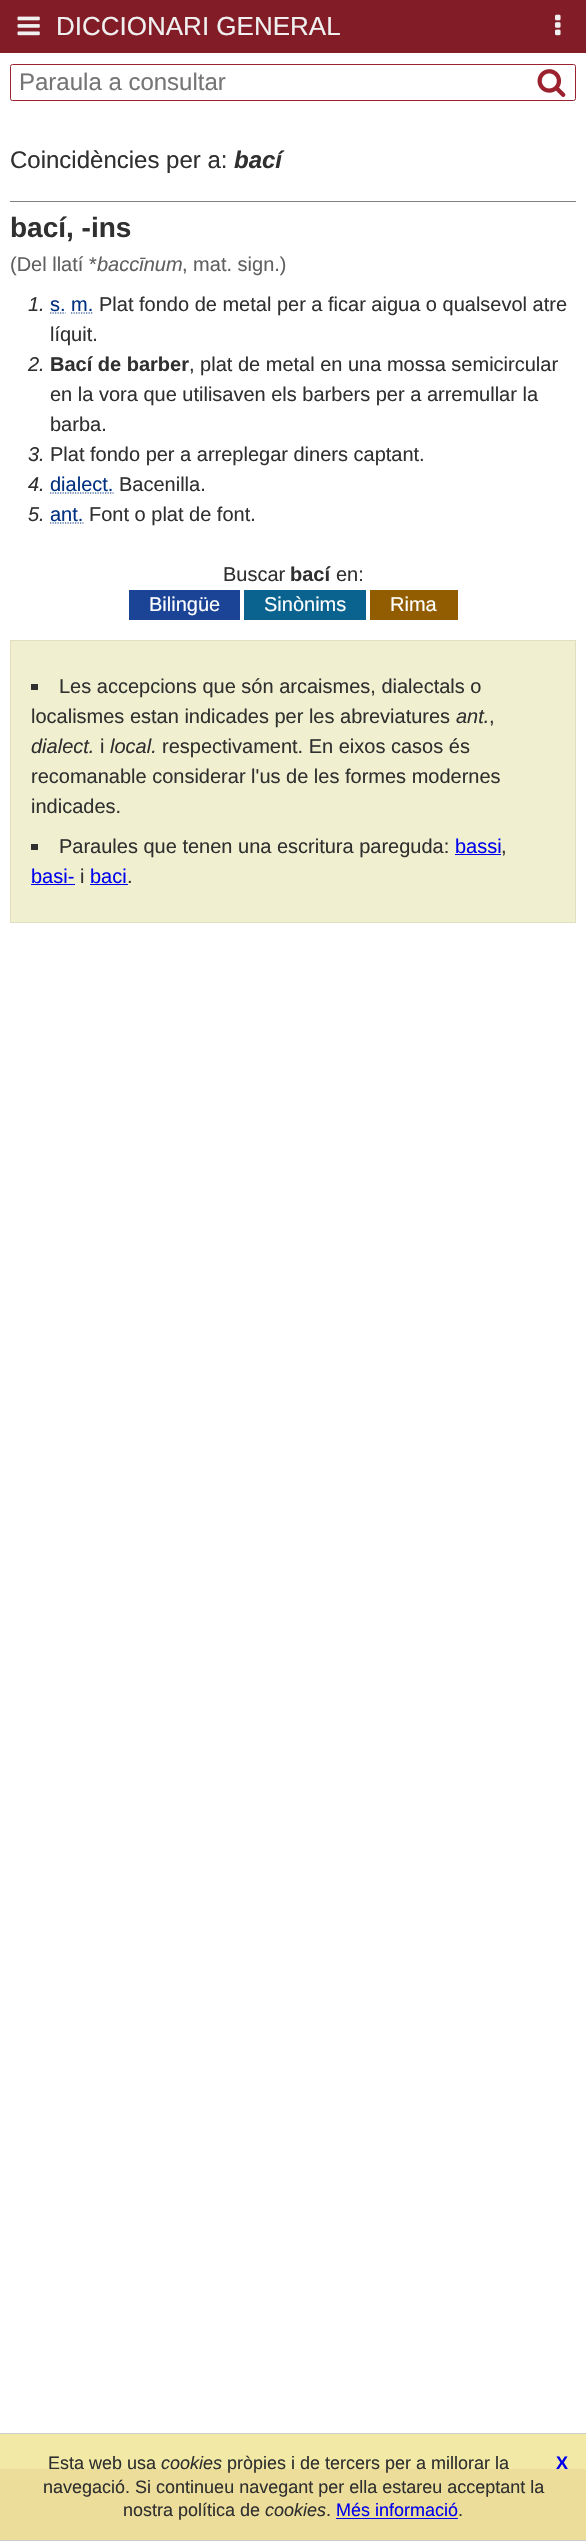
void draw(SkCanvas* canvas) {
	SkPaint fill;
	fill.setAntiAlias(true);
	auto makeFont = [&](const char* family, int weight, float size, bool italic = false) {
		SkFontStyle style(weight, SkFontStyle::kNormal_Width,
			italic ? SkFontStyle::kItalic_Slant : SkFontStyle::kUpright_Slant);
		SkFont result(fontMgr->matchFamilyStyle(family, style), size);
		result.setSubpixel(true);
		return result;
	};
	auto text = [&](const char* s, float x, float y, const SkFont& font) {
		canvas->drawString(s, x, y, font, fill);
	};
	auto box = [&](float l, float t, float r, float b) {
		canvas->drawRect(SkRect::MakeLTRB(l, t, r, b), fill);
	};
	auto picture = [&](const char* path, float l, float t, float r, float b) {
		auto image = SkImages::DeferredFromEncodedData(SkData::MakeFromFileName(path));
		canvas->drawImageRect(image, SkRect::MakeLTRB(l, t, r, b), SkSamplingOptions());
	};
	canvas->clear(0xFFFFFFFF);
	fill.setColor(0xFFF1E9A5);
	box(0, 2434, 586, 2469);
	fill.setColor(0xFF821C27);
	box(0, 0, 586, 53);
	picture("image0.png", 17, 16, 40, 36);
	picture("image1.png", 555, 14, 561, 36);
	fill.setStyle(SkPaint::kStroke_Style);
	fill.setStrokeWidth(1);
	fill.setColor(0xFF9B212E);
	canvas->drawRoundRect(SkRect::MakeLTRB(10.5f, 64.5f, 575.5f, 100.5f), 2, 2, fill);
	picture("image2.png", 537, 69, 566, 97);
	fill.setStyle(SkPaint::kFill_Style);
	fill.setColor(0xFF808080);
	box(10, 201, 576, 202);
	fill.setStyle(SkPaint::kStroke_Style);
	fill.setStrokeWidth(1.2f);
	fill.setColor(0xFF003080);
	fill.setPathEffect(SkDashPathEffect::Make({{1.25f, 1.25f}}, 0));
	canvas->drawPath(SkPathBuilder().moveTo(50, 313).lineTo(65.5f, 313).detach(), fill);
	fill.setPathEffect(nullptr);
	fill.setPathEffect(SkDashPathEffect::Make({{1.25f, 1.25f}}, 0));
	canvas->drawPath(SkPathBuilder().moveTo(71, 313).lineTo(93.5f, 313).detach(), fill);
	fill.setPathEffect(nullptr);
	fill.setPathEffect(SkDashPathEffect::Make({{1.25f, 1.25f}}, 0));
	canvas->drawPath(SkPathBuilder().moveTo(50, 493).lineTo(113.5f, 493).detach(), fill);
	fill.setPathEffect(nullptr);
	fill.setPathEffect(SkDashPathEffect::Make({{1.25f, 1.25f}}, 0));
	canvas->drawPath(SkPathBuilder().moveTo(50, 523).lineTo(83.5f, 523).detach(), fill);
	fill.setPathEffect(nullptr);
	fill.setStyle(SkPaint::kFill_Style);
	fill.setColor(0xFF1B4496);
	box(129, 590, 240, 620);
	fill.setColor(0xFF0A638F);
	box(244, 590, 366, 620);
	fill.setColor(0xFF915D00);
	box(370, 590, 458, 620);
	fill.setColor(0xFFF0F0D0);
	canvas->drawRect(SkRect::MakeLTRB(10.5f, 640.5f, 575.5f, 922.5f), fill);
	fill.setStyle(SkPaint::kStroke_Style);
	fill.setStrokeWidth(1);
	fill.setColor(0xFFE0E0C0);
	canvas->drawRect(SkRect::MakeLTRB(10.5f, 640.5f, 575.5f, 922.5f), fill);
	fill.setStyle(SkPaint::kFill_Style);
	fill.setColor(0xFF303030);
	box(31, 684, 38, 690);
	box(31, 844, 38, 850);
	fill.setColor(0xFF0000EE);
	box(455, 854, 501, 855);
	box(31, 884, 75, 885);
	box(90, 884, 128, 885);
	fill.setColor(0xFFCCCCCC);
	box(0, 2433, 586, 2434);
	box(0, 2540, 586, 2541);
	fill.setColor(0xFFECDE9A);
	box(0, 2469, 586, 2540);
	fill.setColor(0xFF0000EE);
	box(336, 2518, 458, 2519);
	auto font1 = makeFont("Liberation Sans", 400, 26);
	fill.setColor(0xFFF0F0F0);
	text("DICCIONARI GENERAL", 56, 35, font1);
	auto font2 = makeFont("Liberation Sans", 400, 24);
	fill.setColor(0xFF757575);
	text("Paraula a consultar", 19, 90, font2);
	fill.setColor(0xFF303030);
	text("Coincidències per a:", 10, 168, font2);
	auto font3 = makeFont("Liberation Sans", 700, 24, true);
	text("bací", 234, 168, font3);
	auto font4 = makeFont("Liberation Sans", 700, 28);
	text("bací, -ins", 10, 237, font4);
	auto font5 = makeFont("Liberation Sans", 400, 20);
	fill.setColor(0xFF606060);
	text("(Del llatí *", 10, 271, font5);
	auto font6 = makeFont("Liberation Sans", 400, 20, true);
	text("baccīnum", 97, 271, font6);
	text(", mat. sign.)", 182, 271, font5);
	fill.setColor(0xFF303030);
	text("1.", 28, 311, font6);
	fill.setColor(0xFF003080);
	text("s. m.", 50, 311, font5);
	fill.setColor(0xFF303030);
	text("Plat fondo de metal per a ficar aigua o qualsevol atre", 99, 311, font5);
	text("líquit.", 50, 341, font5);
	text("2.", 28, 371, font6);
	auto font7 = makeFont("Liberation Sans", 700, 20);
	text("Bací de barber", 50, 371, font7);
	text(", plat de metal en una mossa semicircular", 189, 371, font5);
	text("en la vora que utilisaven els barbers per a arremullar la", 50, 401, font5);
	text("barba.", 50, 431, font5);
	text("3.", 28, 461, font6);
	text("Plat fondo per a arreplegar diners captant.", 50, 461, font5);
	text("4.", 28, 491, font6);
	fill.setColor(0xFF003080);
	text("dialect.", 50, 491, font5);
	fill.setColor(0xFF303030);
	text("Bacenilla.", 119, 491, font5);
	text("5.", 28, 521, font6);
	fill.setColor(0xFF003080);
	text("ant.", 50, 521, font5);
	fill.setColor(0xFF303030);
	text("Font o plat de font.", 89, 521, font5);
	text("Buscar", 223, 581, font5);
	text("bací", 290, 581, font7);
	text("en:", 336, 581, font5);
	fill.setColor(0xFFFFFFFF);
	text("Bilingüe", 149, 611, font5);
	text("Sinònims", 264, 611, font5);
	text("Rima", 390, 611, font5);
	fill.setColor(0xFF303030);
	text("Les accepcions que són arcaismes, dialectals o", 59, 693, font5);
	text("localismes estan indicades per les abreviatures", 31, 723, font5);
	text("ant.", 456, 723, font6);
	text(",", 489, 723, font5);
	text("dialect.", 31, 753, font6);
	text("i", 100, 753, font5);
	text("local.", 110, 753, font6);
	text("respectivament. En eixos casos és", 162, 753, font5);
	text("recomanable considerar l'us de les formes modernes", 31, 783, font5);
	text("indicades.", 31, 813, font5);
	text("Paraules que tenen una escritura pareguda:", 59, 853, font5);
	fill.setColor(0xFF0000EE);
	text("bassi", 455, 853, font5);
	fill.setColor(0xFF303030);
	text(",", 501, 853, font5);
	fill.setColor(0xFF0000EE);
	text("basi-", 31, 883, font5);
	fill.setColor(0xFF303030);
	text("i", 80, 883, font5);
	fill.setColor(0xFF0000EE);
	text("baci", 90, 883, font5);
	fill.setColor(0xFF303030);
	text(".", 127, 883, font5);
	auto font8 = makeFont("Liberation Sans", 400, 18);
	text("Esta web usa", 48, 2469, font8);
	auto font9 = makeFont("Liberation Sans", 400, 18, true);
	text("cookies", 161, 2469, font9);
	text("pròpies i de tercers per a millorar la", 227, 2469, font8);
	auto font10 = makeFont("Liberation Sans", 700, 18);
	fill.setColor(0xFF0000EE);
	text("X", 556, 2469, font10);
	fill.setColor(0xFF303030);
	text("navegació. Si continueu navegant per ella estareu acceptant la", 43, 2493, font8);
	text("nostra política de", 123, 2516, font8);
	text("cookies", 265, 2516, font9);
	text(".", 326, 2516, font8);
	fill.setColor(0xFF0000EE);
	text("Més informació", 336, 2516, font8);
	fill.setColor(0xFF303030);
	text(".", 458, 2516, font8);
}
